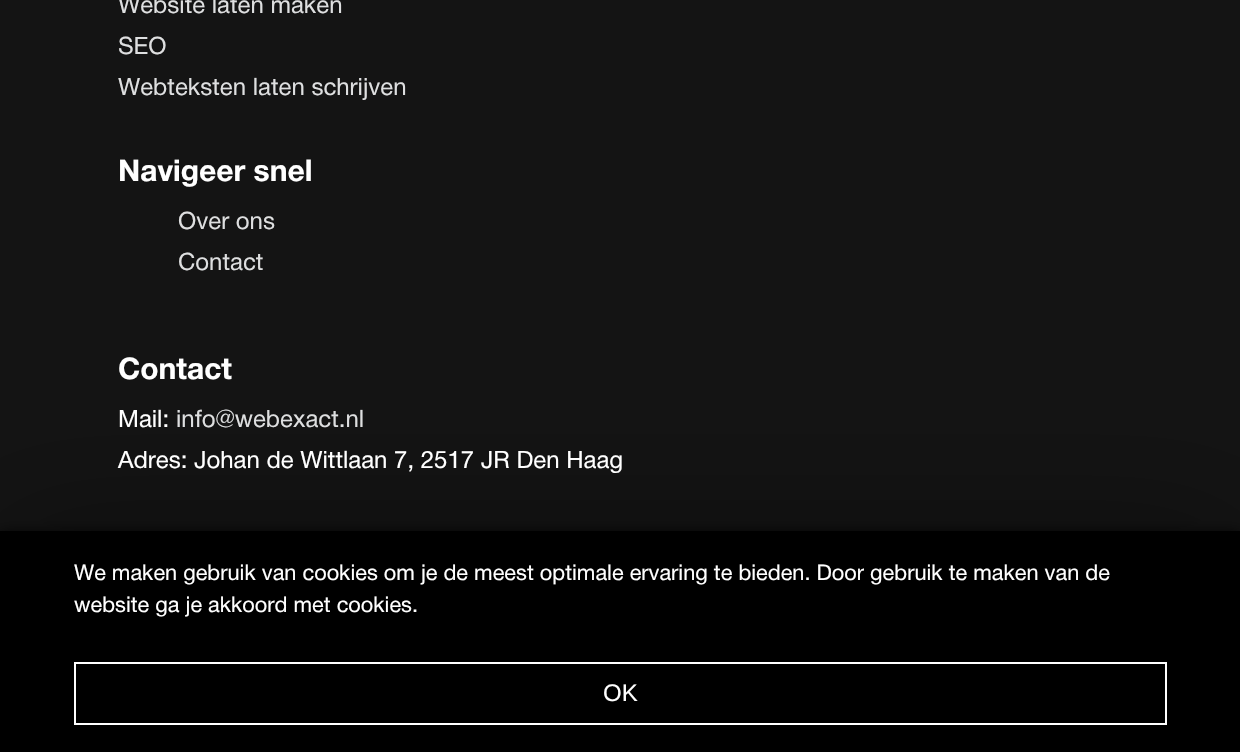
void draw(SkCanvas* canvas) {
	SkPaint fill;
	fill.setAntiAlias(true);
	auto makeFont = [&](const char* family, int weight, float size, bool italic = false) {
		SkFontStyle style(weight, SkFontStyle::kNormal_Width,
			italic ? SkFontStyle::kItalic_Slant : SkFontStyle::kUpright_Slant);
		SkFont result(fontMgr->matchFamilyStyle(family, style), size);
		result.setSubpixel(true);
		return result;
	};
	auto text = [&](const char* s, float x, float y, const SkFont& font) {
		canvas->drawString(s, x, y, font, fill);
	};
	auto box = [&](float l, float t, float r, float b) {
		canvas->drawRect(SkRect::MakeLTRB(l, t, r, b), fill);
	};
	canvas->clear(0xFF141414);
	fill.setColor(0xFF000000);
	fill.setMaskFilter(SkMaskFilter::MakeBlur(kNormal_SkBlurStyle, 7.5f));
	canvas->drawRect(SkRect::MakeLTRB(0, 534, 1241, 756), fill);
	fill.setMaskFilter(nullptr);
	fill.setColor(0x66000000);
	fill.setMaskFilter(SkMaskFilter::MakeBlur(kNormal_SkBlurStyle, 67.5f));
	canvas->drawRect(SkRect::MakeLTRB(0, 534, 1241, 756), fill);
	fill.setMaskFilter(nullptr);
	fill.setColor(0xFF000000);
	box(0, 531, 1240, 752);
	fill.setStyle(SkPaint::kStroke_Style);
	fill.setStrokeWidth(2);
	fill.setColor(0xFFFFFFFF);
	canvas->drawRect(SkRect::MakeLTRB(75, 663, 1166, 724), fill);
	auto font1 = makeFont("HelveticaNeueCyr", 400, 24);
	fill.setStyle(SkPaint::kFill_Style);
	fill.setColor(0xFFDEDFE0);
	text("Website laten maken", 118, 13, font1);
	text("SEO", 118, 54, font1);
	text("Webteksten laten schrijven", 118, 95, font1);
	auto font2 = makeFont("HelveticaNeueCyr", 700, 30);
	fill.setColor(0xFFFFFFFF);
	text("Navigeer snel", 118, 181, font2);
	fill.setColor(0xFFDEDFE0);
	text("Over ons", 178, 229, font1);
	text("Contact", 178, 270, font1);
	fill.setColor(0xFFFFFFFF);
	text("Contact", 118, 379, font2);
	text("Mail:", 118, 427, font1);
	fill.setColor(0xFFDEDFE0);
	text("info@webexact.nl", 176, 427, font1);
	fill.setColor(0xFFFFFFFF);
	text("Adres: Johan de Wittlaan 7, 2517 JR Den Haag", 118, 468, font1);
	auto font3 = makeFont("HelveticaNeueCyr", 400, 21.75f);
	text("We maken gebruik van cookies om je de meest optimale ervaring te bieden. Door gebruik te maken van de", 74, 580, font3);
	text("website ga je akkoord met cookies.", 74, 612, font3);
	auto font4 = makeFont("Liberation Sans", 400, 24);
	text("OK", 603, 701, font4);
}
